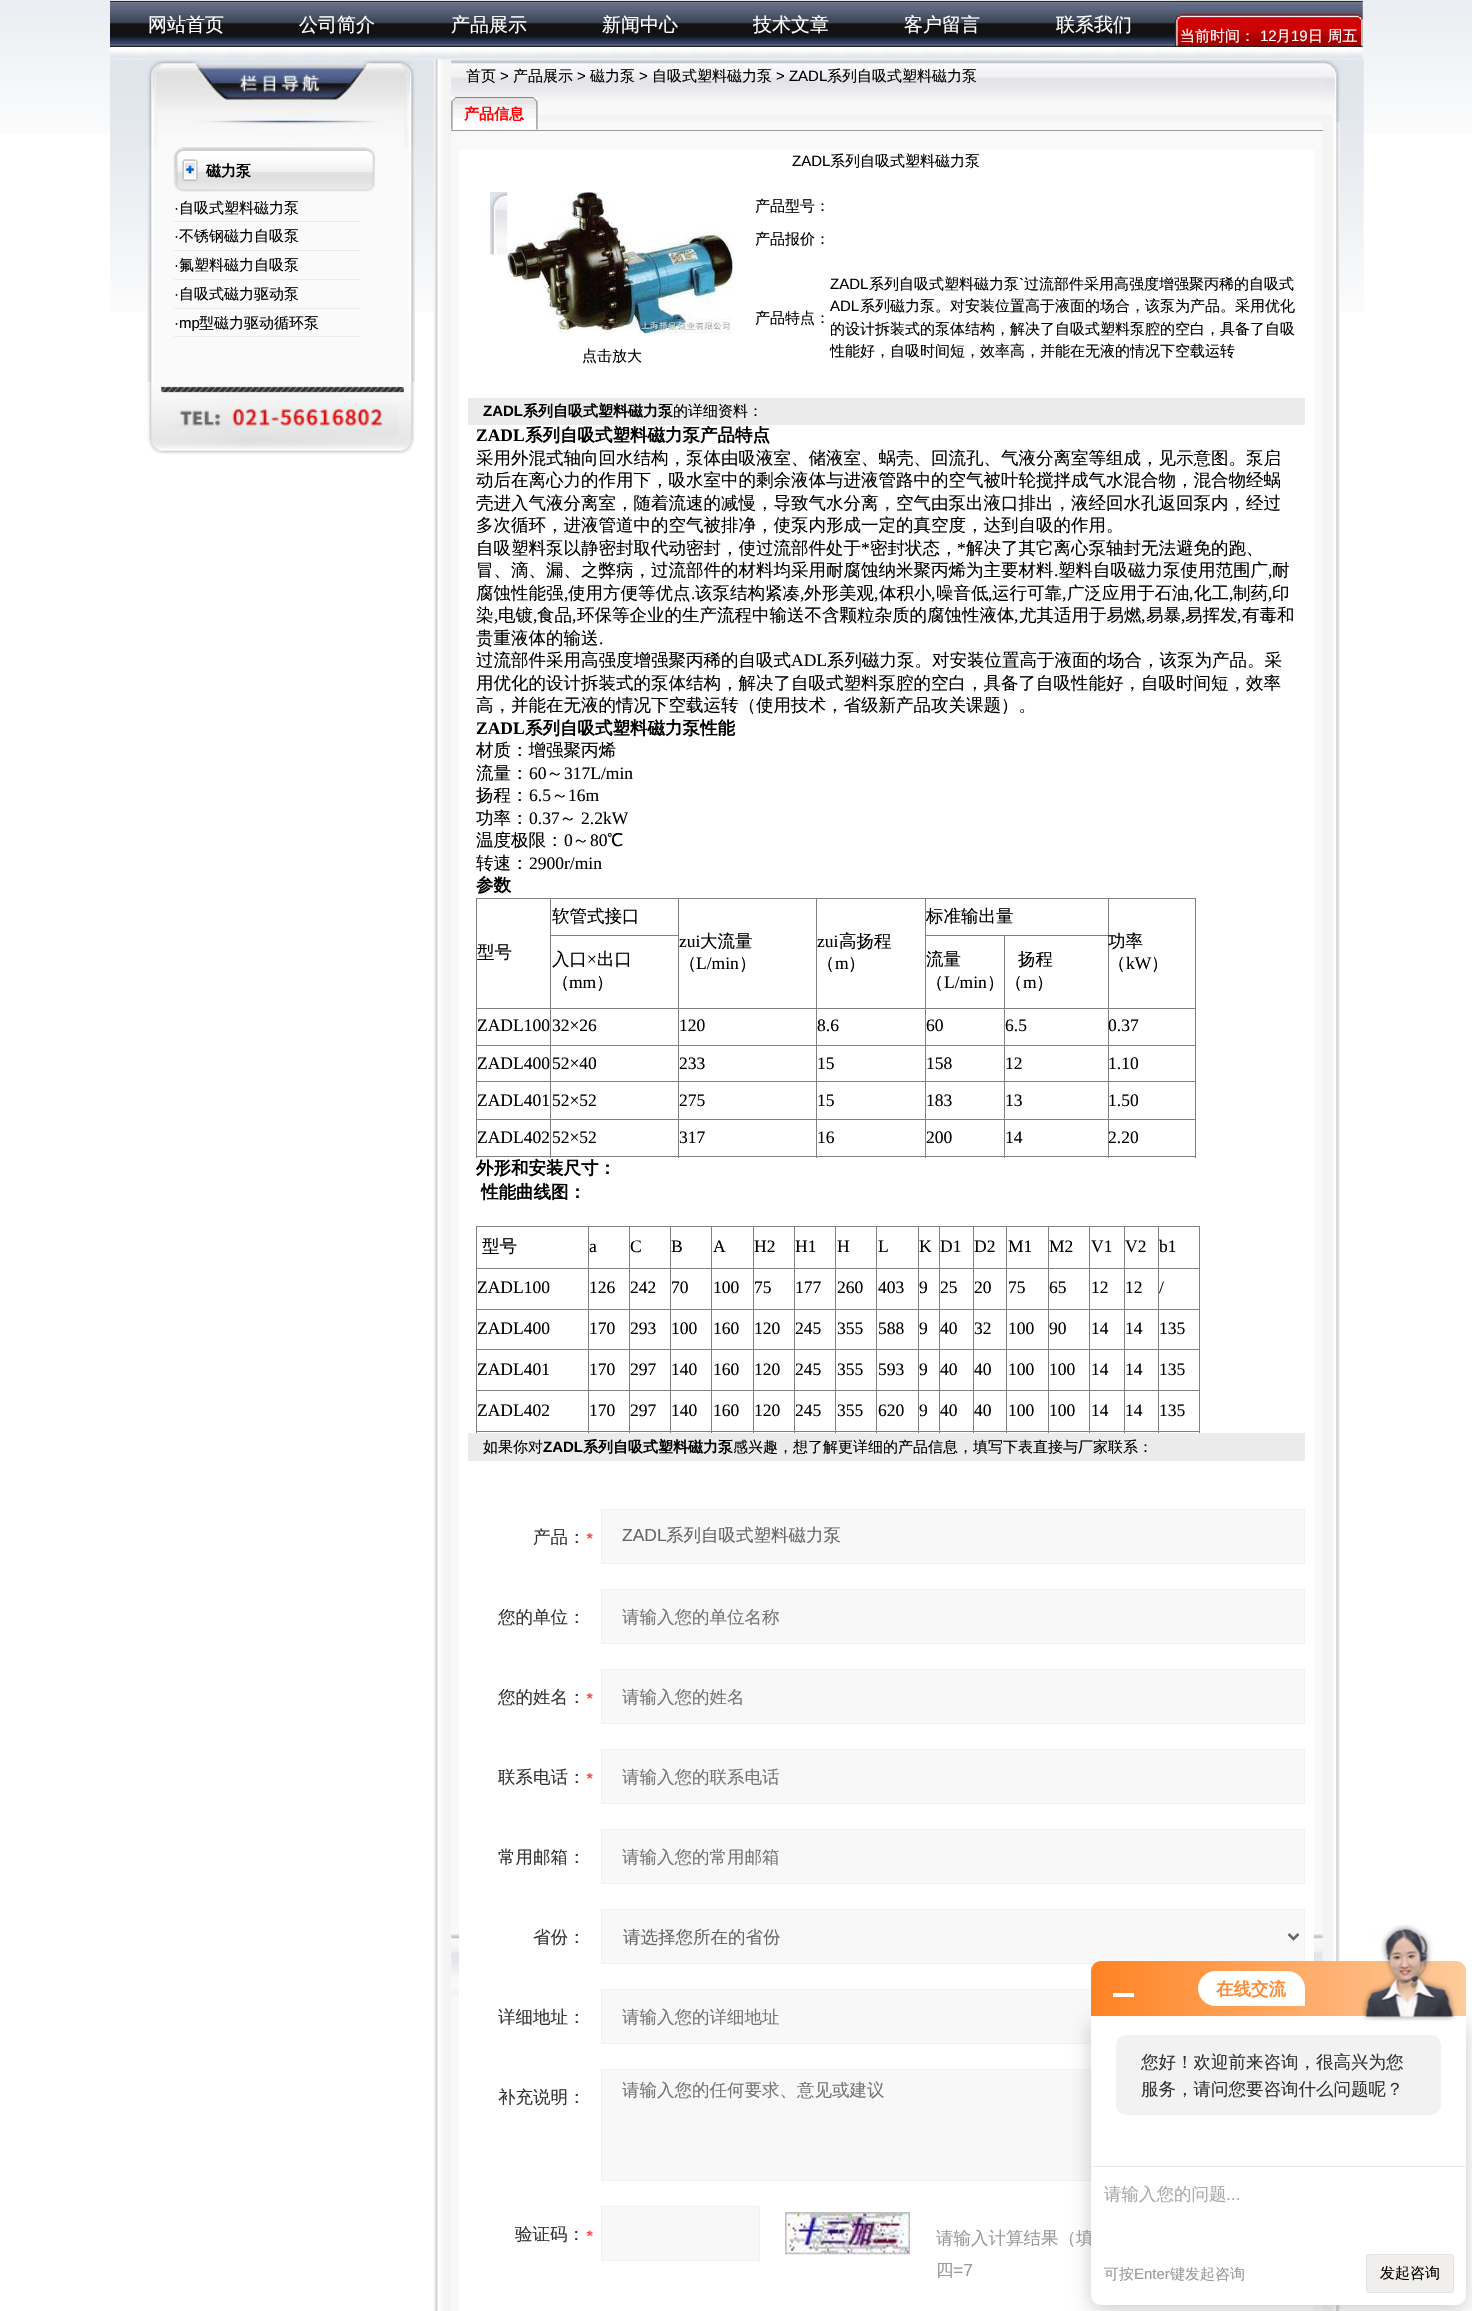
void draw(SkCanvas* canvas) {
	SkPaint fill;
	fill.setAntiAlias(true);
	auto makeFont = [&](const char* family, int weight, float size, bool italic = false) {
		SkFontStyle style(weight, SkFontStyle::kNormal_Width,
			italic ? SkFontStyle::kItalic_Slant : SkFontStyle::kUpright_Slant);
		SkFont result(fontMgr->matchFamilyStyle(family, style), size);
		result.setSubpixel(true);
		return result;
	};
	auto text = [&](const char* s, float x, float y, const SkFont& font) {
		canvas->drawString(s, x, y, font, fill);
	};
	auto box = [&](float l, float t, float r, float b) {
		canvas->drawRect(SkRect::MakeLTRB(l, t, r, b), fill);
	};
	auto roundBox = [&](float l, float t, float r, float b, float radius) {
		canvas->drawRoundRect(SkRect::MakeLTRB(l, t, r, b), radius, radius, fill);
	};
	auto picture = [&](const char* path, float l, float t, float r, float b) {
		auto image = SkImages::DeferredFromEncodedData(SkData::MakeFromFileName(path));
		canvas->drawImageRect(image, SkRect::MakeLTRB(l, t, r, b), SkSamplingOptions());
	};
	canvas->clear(0xFFFFFFFF);
	picture("image0.png", 0, 0, 1472, 134);
	picture("image2.png", 110, 0, 1363, 47);
	picture("image3.png", 110, 0, 1175, 47);
	picture("image4.png", 1175, 0, 1363, 47);
	picture("image5.png", 1175, 0, 1363, 47);
	picture("image1.png", 110, 0, 1363, 1);
	picture("image6.png", 110, 47, 1363, 60);
	picture("image7.png", 110, 59, 1364, 312);
	picture("image8.png", 147, 59, 415, 147);
	picture("image9.png", 147, 147, 415, 382);
	picture("image10.png", 173, 147, 375, 192);
	picture("image11.png", 182, 159, 198, 181);
	fill.setColor(0xFFEAEAEA);
	box(174, 221, 361, 222);
	box(174, 250, 361, 251);
	box(174, 279, 361, 280);
	box(174, 308, 361, 309);
	box(174, 336, 361, 337);
	picture("image12.png", 147, 382, 415, 455);
	picture("image13.png", 433, 59, 1340, 2311);
	picture("image14.png", 451, 60, 1323, 2311);
	picture("image15.png", 451, 97, 538, 130);
	fill.setColor(0xFF999999);
	box(451, 130, 1323, 131);
	fill.setColor(0xFFFFFFFF);
	box(459, 150, 1314, 2311);
	picture("image16.png", 490, 192, 508, 255);
	picture("image17.png", 507, 192, 733, 334);
	fill.setColor(0xFFEBEBEB);
	box(468, 398, 1305, 425);
	fill.setColor(0xFF808080);
	box(476, 898, 1196, 899);
	box(1195, 898, 1196, 1158);
	box(476, 1156, 1196, 1157);
	box(476, 898, 477, 1158);
	box(550, 935, 679, 936);
	box(1108, 1008, 1196, 1009);
	box(1108, 1045, 1196, 1046);
	box(1108, 1081, 1196, 1082);
	box(1108, 1119, 1196, 1120);
	box(1108, 1119, 1109, 1158);
	box(1004, 1119, 1109, 1120);
	box(1108, 1081, 1109, 1120);
	box(1004, 1081, 1109, 1082);
	box(1108, 1045, 1109, 1083);
	box(1004, 1045, 1109, 1046);
	box(1108, 1008, 1109, 1046);
	box(1004, 1008, 1109, 1009);
	box(1004, 1119, 1005, 1158);
	box(925, 1119, 1005, 1120);
	box(1004, 1081, 1005, 1120);
	box(925, 1081, 1005, 1082);
	box(1004, 1045, 1005, 1083);
	box(925, 1045, 1005, 1046);
	box(1004, 1008, 1005, 1046);
	box(925, 1008, 1005, 1009);
	box(925, 1119, 926, 1158);
	box(816, 1119, 926, 1120);
	box(925, 1081, 926, 1120);
	box(816, 1081, 926, 1082);
	box(925, 1045, 926, 1083);
	box(816, 1045, 926, 1046);
	box(925, 1008, 926, 1046);
	box(816, 1008, 926, 1009);
	box(816, 1119, 817, 1158);
	box(678, 1119, 818, 1120);
	box(816, 1081, 817, 1120);
	box(678, 1081, 818, 1082);
	box(816, 1045, 817, 1083);
	box(678, 1045, 818, 1046);
	box(816, 1008, 817, 1046);
	box(678, 1008, 818, 1009);
	box(678, 1119, 679, 1158);
	box(550, 1119, 679, 1120);
	box(678, 1081, 679, 1120);
	box(550, 1081, 679, 1082);
	box(678, 1045, 679, 1083);
	box(550, 1045, 679, 1046);
	box(678, 1008, 679, 1046);
	box(550, 1008, 679, 1009);
	box(678, 898, 679, 1009);
	box(816, 898, 817, 1009);
	box(1004, 935, 1109, 936);
	box(1108, 898, 1109, 1009);
	box(550, 1119, 551, 1158);
	box(476, 1119, 551, 1120);
	box(550, 1081, 551, 1120);
	box(476, 1081, 551, 1082);
	box(550, 1045, 551, 1083);
	box(476, 1045, 551, 1046);
	box(550, 1008, 551, 1046);
	box(476, 1008, 551, 1009);
	box(550, 898, 551, 1009);
	box(1004, 935, 1005, 1009);
	box(925, 935, 1005, 936);
	box(925, 898, 926, 1009);
	box(476, 1226, 1200, 1227);
	box(1199, 1226, 1200, 1433);
	box(476, 1431, 1200, 1432);
	box(476, 1226, 477, 1433);
	box(1158, 1268, 1200, 1269);
	box(1158, 1309, 1200, 1310);
	box(1158, 1349, 1200, 1350);
	box(1158, 1390, 1200, 1391);
	box(1158, 1390, 1159, 1433);
	box(1124, 1390, 1159, 1391);
	box(1158, 1349, 1159, 1391);
	box(1124, 1349, 1159, 1350);
	box(1158, 1309, 1159, 1350);
	box(1124, 1309, 1159, 1310);
	box(1158, 1268, 1159, 1310);
	box(1124, 1268, 1159, 1269);
	box(1124, 1390, 1125, 1433);
	box(1089, 1390, 1125, 1391);
	box(1124, 1349, 1125, 1391);
	box(1089, 1349, 1125, 1350);
	box(1124, 1309, 1125, 1350);
	box(1089, 1309, 1125, 1310);
	box(1124, 1268, 1125, 1310);
	box(1089, 1268, 1125, 1269);
	box(1089, 1390, 1090, 1433);
	box(1048, 1390, 1090, 1391);
	box(1089, 1349, 1090, 1391);
	box(1048, 1349, 1090, 1350);
	box(1089, 1309, 1090, 1350);
	box(1048, 1309, 1090, 1310);
	box(1089, 1268, 1090, 1310);
	box(1048, 1268, 1090, 1269);
	box(1048, 1390, 1049, 1433);
	box(1006, 1390, 1049, 1391);
	box(1048, 1349, 1049, 1391);
	box(1006, 1349, 1049, 1350);
	box(1048, 1309, 1049, 1350);
	box(1006, 1309, 1049, 1310);
	box(1048, 1268, 1049, 1310);
	box(1006, 1268, 1049, 1269);
	box(1006, 1390, 1007, 1433);
	box(973, 1390, 1008, 1391);
	box(1006, 1349, 1007, 1391);
	box(973, 1349, 1008, 1350);
	box(1006, 1309, 1007, 1350);
	box(973, 1309, 1008, 1310);
	box(1006, 1268, 1007, 1310);
	box(973, 1268, 1008, 1269);
	box(973, 1390, 974, 1433);
	box(939, 1390, 974, 1391);
	box(973, 1349, 974, 1391);
	box(939, 1349, 974, 1350);
	box(973, 1309, 974, 1350);
	box(939, 1309, 974, 1310);
	box(973, 1268, 974, 1310);
	box(939, 1268, 974, 1269);
	box(939, 1390, 940, 1433);
	box(918, 1390, 940, 1391);
	box(939, 1349, 940, 1391);
	box(918, 1349, 940, 1350);
	box(939, 1309, 940, 1350);
	box(918, 1309, 940, 1310);
	box(939, 1268, 940, 1310);
	box(918, 1268, 940, 1269);
	box(918, 1390, 919, 1433);
	box(876, 1390, 919, 1391);
	box(918, 1349, 919, 1391);
	box(876, 1349, 919, 1350);
	box(918, 1309, 919, 1350);
	box(876, 1309, 919, 1310);
	box(918, 1268, 919, 1310);
	box(876, 1268, 919, 1269);
	box(876, 1390, 877, 1433);
	box(835, 1390, 878, 1391);
	box(876, 1349, 877, 1391);
	box(835, 1349, 878, 1350);
	box(876, 1309, 877, 1350);
	box(835, 1309, 878, 1310);
	box(876, 1268, 877, 1310);
	box(835, 1268, 878, 1269);
	box(835, 1390, 836, 1433);
	box(794, 1390, 836, 1391);
	box(835, 1349, 836, 1391);
	box(794, 1349, 836, 1350);
	box(835, 1309, 836, 1350);
	box(794, 1309, 836, 1310);
	box(835, 1268, 836, 1310);
	box(794, 1268, 836, 1269);
	box(794, 1390, 795, 1433);
	box(753, 1390, 795, 1391);
	box(794, 1349, 795, 1391);
	box(753, 1349, 795, 1350);
	box(794, 1309, 795, 1350);
	box(753, 1309, 795, 1310);
	box(794, 1268, 795, 1310);
	box(753, 1268, 795, 1269);
	box(753, 1390, 754, 1433);
	box(711, 1390, 754, 1391);
	box(753, 1349, 754, 1391);
	box(711, 1349, 754, 1350);
	box(753, 1309, 754, 1350);
	box(711, 1309, 754, 1310);
	box(753, 1268, 754, 1310);
	box(711, 1268, 754, 1269);
	box(711, 1390, 712, 1433);
	box(670, 1390, 713, 1391);
	box(711, 1349, 712, 1391);
	box(670, 1349, 713, 1350);
	box(711, 1309, 712, 1350);
	box(670, 1309, 713, 1310);
	box(711, 1268, 712, 1310);
	box(670, 1268, 713, 1269);
	box(670, 1390, 671, 1433);
	box(629, 1390, 671, 1391);
	box(670, 1349, 671, 1391);
	box(629, 1349, 671, 1350);
	box(670, 1309, 671, 1350);
	box(629, 1309, 671, 1310);
	box(670, 1268, 671, 1310);
	box(629, 1268, 671, 1269);
	box(629, 1390, 630, 1433);
	box(588, 1390, 630, 1391);
	box(629, 1349, 630, 1391);
	box(588, 1349, 630, 1350);
	box(629, 1309, 630, 1350);
	box(588, 1309, 630, 1310);
	box(629, 1268, 630, 1310);
	box(588, 1268, 630, 1269);
	box(588, 1390, 589, 1433);
	box(476, 1390, 589, 1391);
	box(588, 1349, 589, 1391);
	box(476, 1349, 589, 1350);
	box(588, 1309, 589, 1350);
	box(476, 1309, 589, 1310);
	box(588, 1268, 589, 1310);
	box(476, 1268, 589, 1269);
	box(588, 1226, 589, 1269);
	box(629, 1226, 630, 1269);
	box(670, 1226, 671, 1269);
	box(711, 1226, 712, 1269);
	box(753, 1226, 754, 1269);
	box(794, 1226, 795, 1269);
	box(835, 1226, 836, 1269);
	box(876, 1226, 877, 1269);
	box(918, 1226, 919, 1269);
	box(939, 1226, 940, 1269);
	box(973, 1226, 974, 1269);
	box(1006, 1226, 1007, 1269);
	box(1048, 1226, 1049, 1269);
	box(1089, 1226, 1090, 1269);
	box(1124, 1226, 1125, 1269);
	box(1158, 1226, 1159, 1269);
	fill.setColor(0xFFEBEBEB);
	box(468, 1433, 1305, 1461);
	picture("image18.png", 586, 1533, 593, 1539);
	fill.setColor(0xFFF8F8F8);
	canvas->drawRect(SkRect::MakeLTRB(601.5f, 1509.5f, 1304.5f, 1563.5f), fill);
	fill.setStyle(SkPaint::kStroke_Style);
	fill.setStrokeWidth(1);
	fill.setColor(0xFFF1F1F1);
	canvas->drawRect(SkRect::MakeLTRB(601.5f, 1509.5f, 1304.5f, 1563.5f), fill);
	fill.setStyle(SkPaint::kFill_Style);
	fill.setColor(0xFFF8F8F8);
	canvas->drawRect(SkRect::MakeLTRB(601.5f, 1589.5f, 1304.5f, 1643.5f), fill);
	fill.setStyle(SkPaint::kStroke_Style);
	fill.setColor(0xFFF1F1F1);
	canvas->drawRect(SkRect::MakeLTRB(601.5f, 1589.5f, 1304.5f, 1643.5f), fill);
	picture("image18.png", 586, 1693, 593, 1699);
	fill.setStyle(SkPaint::kFill_Style);
	fill.setColor(0xFFF8F8F8);
	canvas->drawRect(SkRect::MakeLTRB(601.5f, 1669.5f, 1304.5f, 1723.5f), fill);
	fill.setStyle(SkPaint::kStroke_Style);
	fill.setColor(0xFFF1F1F1);
	canvas->drawRect(SkRect::MakeLTRB(601.5f, 1669.5f, 1304.5f, 1723.5f), fill);
	picture("image18.png", 586, 1773, 593, 1779);
	fill.setStyle(SkPaint::kFill_Style);
	fill.setColor(0xFFF8F8F8);
	canvas->drawRect(SkRect::MakeLTRB(601.5f, 1749.5f, 1304.5f, 1803.5f), fill);
	fill.setStyle(SkPaint::kStroke_Style);
	fill.setColor(0xFFF1F1F1);
	canvas->drawRect(SkRect::MakeLTRB(601.5f, 1749.5f, 1304.5f, 1803.5f), fill);
	fill.setStyle(SkPaint::kFill_Style);
	fill.setColor(0xFFF8F8F8);
	canvas->drawRect(SkRect::MakeLTRB(601.5f, 1829.5f, 1304.5f, 1883.5f), fill);
	fill.setStyle(SkPaint::kStroke_Style);
	fill.setColor(0xFFF1F1F1);
	canvas->drawRect(SkRect::MakeLTRB(601.5f, 1829.5f, 1304.5f, 1883.5f), fill);
	fill.setStyle(SkPaint::kFill_Style);
	fill.setColor(0xFFF8F8F8);
	canvas->drawRect(SkRect::MakeLTRB(601.5f, 1909.5f, 1304.5f, 1963.5f), fill);
	fill.setStyle(SkPaint::kStroke_Style);
	fill.setColor(0xFFF1F1F1);
	canvas->drawRect(SkRect::MakeLTRB(601.5f, 1909.5f, 1304.5f, 1963.5f), fill);
	fill.setStrokeWidth(2.5f);
	fill.setColor(0xFF666666);
	canvas->drawPath(SkPathBuilder().moveTo(1288.5f, 1934).lineTo(1293.5f, 1939).lineTo(1298.5f, 1934).detach(), fill);
	fill.setStyle(SkPaint::kFill_Style);
	fill.setColor(0xFFF8F8F8);
	box(602, 1990, 1091, 2043);
	fill.setStyle(SkPaint::kStroke_Style);
	fill.setStrokeWidth(1);
	fill.setColor(0xFFF1F1F1);
	canvas->drawRect(SkRect::MakeLTRB(601.5f, 1989.5f, 1304.5f, 2043.5f), fill);
	fill.setStyle(SkPaint::kFill_Style);
	fill.setColor(0xFFF8F8F8);
	box(602, 2070, 1091, 2180);
	fill.setStyle(SkPaint::kStroke_Style);
	fill.setColor(0xFFF1F1F1);
	canvas->drawRect(SkRect::MakeLTRB(601.5f, 2069.5f, 1304.5f, 2180.5f), fill);
	picture("image19.png", 586, 2230, 593, 2236);
	fill.setStyle(SkPaint::kFill_Style);
	fill.setColor(0xFFF8F8F8);
	canvas->drawRect(SkRect::MakeLTRB(601.5f, 2206.5f, 759.5f, 2260.5f), fill);
	fill.setStyle(SkPaint::kStroke_Style);
	fill.setColor(0xFFF1F1F1);
	canvas->drawRect(SkRect::MakeLTRB(601.5f, 2206.5f, 759.5f, 2260.5f), fill);
	picture("image20.png", 785, 2212, 910, 2255);
	picture("image21.png", 1322, 59, 1340, 122);
	fill.setStyle(SkPaint::kFill_Style);
	fill.setColor(0x33000000);
	fill.setMaskFilter(SkMaskFilter::MakeBlur(kNormal_SkBlurStyle, 10));
	canvas->drawRoundRect(SkRect::MakeLTRB(1091, 2021, 1466, 2310), 10, 10, fill);
	fill.setMaskFilter(nullptr);
	{
		const SkColor colors[] = {0xFFFF8324, 0xFFFECB9C};
		const float stops[] = {0, 1};
		const SkPoint ends[] = {{1091, 1989}, {1466, 1989}};
		fill.setShader(SkGradientShader::MakeLinear(ends, colors, stops, 2, SkTileMode::kClamp));
		fill.setAlpha(255);
	}
	canvas->drawPath(SkPathBuilder().moveTo(1101, 1961).lineTo(1456, 1961).cubicTo(1461.5f, 1961, 1466, 1965.5f, 1466, 1971).lineTo(1466, 2016).lineTo(1091, 2016).lineTo(1091, 1971).cubicTo(1091, 1965.5f, 1095.5f, 1961, 1101, 1961).close().detach(), fill);
	fill.setShader(nullptr);
	fill.setColor(0xFFFFFFFF);
	box(1113, 1993, 1134, 1997);
	canvas->drawPath(SkPathBuilder().moveTo(1215.5f, 1971).lineTo(1287.5f, 1971).cubicTo(1297, 1971, 1305, 1979, 1305, 1988.5f).lineTo(1305, 2006).lineTo(1215.5f, 2006).cubicTo(1206, 2006, 1198, 1998, 1198, 1988.5f).cubicTo(1198, 1979, 1206, 1971, 1215.5f, 1971).close().detach(), fill);
	auto font1 = makeFont("WenQuanYi Zen Hei", 500, 19);
	text("网站首页", 148, 31, font1);
	text("公司简介", 299, 31, font1);
	text("产品展示", 451, 31, font1);
	text("新闻中心", 602, 31, font1);
	text("技术文章", 753, 31, font1);
	text("客户留言", 904, 31, font1);
	text("联系我们", 1056, 31, font1);
	auto font2 = makeFont("WenQuanYi Zen Hei", 500, 15);
	text("当前时间：", 1180, 41, font2);
	auto font3 = makeFont("Liberation Sans", 400, 15);
	text("12", 1260, 41, font3);
	text("月", 1276, 41, font2);
	text("19", 1291, 41, font3);
	text("日 周五", 1308, 41, font2);
	auto font4 = makeFont("WenQuanYi Zen Hei", 700, 15);
	fill.setColor(0xFF000000);
	text("磁力泵", 206, 176, font4);
	text("·", 174, 213, font3);
	text("自吸式塑料磁力泵", 179, 213, font2);
	text("·", 174, 241, font3);
	text("不锈钢磁力自吸泵", 179, 241, font2);
	text("·", 174, 270, font3);
	text("氟塑料磁力自吸泵", 179, 270, font2);
	text("·", 174, 299, font3);
	text("自吸式磁力驱动泵", 179, 299, font2);
	text("·mp", 174, 328, font3);
	text("型磁力驱动循环泵", 199, 328, font2);
	text("首页", 466, 81, font2);
	text(">", 500, 81, font3);
	text("产品展示", 513, 81, font2);
	text(">", 577, 81, font3);
	text("磁力泵", 590, 81, font2);
	text(">", 639, 81, font3);
	text("自吸式塑料磁力泵", 652, 81, font2);
	text("> ZADL", 776, 81, font3);
	text("系列自吸式塑料磁力泵", 827, 81, font2);
	fill.setColor(0xFFFF0000);
	text("产品信息", 464, 119, font4);
	fill.setColor(0xFF000000);
	text("ZADL", 792, 166, font3);
	text("系列自吸式塑料磁力泵", 830, 166, font2);
	text("点击放大", 582, 361, font2);
	text("产品型号：", 755, 211, font2);
	text("产品报价：", 755, 244, font2);
	text("产品特点：", 755, 323, font2);
	text("ZADL", 830, 289, font3);
	text("系列自吸式塑料磁力泵", 869, 289, font2);
	text("`", 1019, 289, font3);
	text("过流部件采用高强度增强聚丙稀的自吸式", 1024, 289, font2);
	text("ADL", 830, 311, font3);
	text("系列磁力泵。对安装位置高于液面的场合，该泵为产品。采用优化", 860, 311, font2);
	text("的设计拆装式的泵体结构，解决了自吸式塑料泵腔的空白，具备了自吸", 830, 334, font2);
	text("性能好，自吸时间短，效率高，并能在无液的情况下空载运转", 830, 356, font2);
	auto font5 = makeFont("Liberation Sans", 700, 15);
	text("ZADL", 483, 416, font5);
	text("系列自吸式塑料磁力泵", 523, 416, font4);
	text("的详细资料：", 673, 416, font2);
	auto font6 = makeFont("Liberation Serif", 700, 17.5f);
	text("ZADL", 476, 441, font6);
	auto font7 = makeFont("WenQuanYi Zen Hei", 700, 17.5f);
	text("系列自吸式塑料磁力泵产品特点", 525, 441, font7);
	auto font8 = makeFont("WenQuanYi Zen Hei", 500, 17.5f);
	text("采用外混式轴向回水结构，泵体由吸液室、储液室、蜗壳、回流孔、气液分离室等组成，见示意图。泵启", 476, 464, font8);
	text("动后在离心力的作用下，吸水室中的剩余液体与进液管路中的空气被叶轮搅拌成气水混合物，混合物经蜗", 476, 486, font8);
	text("壳进入气液分离室，随着流速的减慢，导致气水分离，空气由泵出液口排出，液经回水孔返回泵内，经过", 476, 509, font8);
	text("多次循环，进液管道中的空气被排净，使泵内形成一定的真空度，达到自吸的作用。", 476, 531, font8);
	text("自吸塑料泵以静密封取代动密封，使过流部件处于", 476, 554, font8);
	auto font9 = makeFont("Liberation Serif", 400, 17.5f);
	text("*", 861, 554, font9);
	text("密封状态，", 870, 554, font8);
	text("*", 957, 554, font9);
	text("解决了其它离心泵轴封无法避免的跑、", 966, 554, font8);
	text("冒、滴、漏、之弊病，过流部件的材料均采用耐腐蚀纳米聚丙烯为主要材料", 476, 576, font8);
	text(".", 1054, 576, font9);
	text("塑料自吸磁力泵使用范围广", 1058, 576, font8);
	text(",", 1268, 576, font9);
	text("耐", 1272, 576, font8);
	text("腐蚀性能强", 476, 599, font8);
	text(",", 564, 599, font9);
	text("使用方便等优点", 568, 599, font8);
	text(".", 691, 599, font9);
	text("该泵结构紧凑", 695, 599, font8);
	text(",", 800, 599, font9);
	text("外形美观", 804, 599, font8);
	text(",", 874, 599, font9);
	text("体积小", 879, 599, font8);
	text(",", 931, 599, font9);
	text("噪音低", 936, 599, font8);
	text(",", 988, 599, font9);
	text("运行可靠", 992, 599, font8);
	text(",", 1062, 599, font9);
	text("广泛应用于石油", 1067, 599, font8);
	text(",", 1189, 599, font9);
	text("化工", 1194, 599, font8);
	text(",", 1229, 599, font9);
	text("制药", 1233, 599, font8);
	text(",", 1268, 599, font9);
	text("印", 1272, 599, font8);
	text("染", 476, 621, font8);
	text(",", 494, 621, font9);
	text("电镀", 498, 621, font8);
	text(",", 533, 621, font9);
	text("食品", 537, 621, font8);
	text(",", 572, 621, font9);
	text("环保等企业的生产流程中输送不含颗粒杂质的腐蚀性液体", 577, 621, font8);
	text(",", 1014, 621, font9);
	text("尤其适用于易燃", 1019, 621, font8);
	text(",", 1141, 621, font9);
	text("易暴", 1146, 621, font8);
	text(",", 1181, 621, font9);
	text("易挥发", 1185, 621, font8);
	text(",", 1237, 621, font9);
	text("有毒和", 1242, 621, font8);
	text("贵重液体的输送", 476, 644, font8);
	text(".", 599, 644, font9);
	text("过流部件采用高强度增强聚丙稀的自吸式", 476, 666, font8);
	text("ADL", 791, 666, font9);
	text("系列磁力泵。对安装位置高于液面的场合，该泵为产品。采", 827, 666, font8);
	text("用优化的设计拆装式的泵体结构，解决了自吸式塑料泵腔的空白，具备了自吸性能好，自吸时间短，效率", 476, 689, font8);
	text("高，并能在无液的情况下空载运转（使用技术，省级新产品攻关课题）。", 476, 711, font8);
	text("ZADL", 476, 734, font6);
	text("系列自吸式塑料磁力泵性能", 525, 734, font7);
	text("材质：增强聚丙烯", 476, 756, font8);
	text("流量：", 476, 779, font8);
	text("60", 529, 779, font9);
	text("～", 546, 779, font8);
	text("317L/min", 564, 779, font9);
	text("扬程：", 476, 801, font8);
	text("6.5", 529, 801, font9);
	text("～", 551, 801, font8);
	text("16m", 568, 801, font9);
	text("功率：", 476, 824, font8);
	text("0.37", 529, 824, font9);
	text("～", 559, 824, font8);
	text("2.2kW", 581, 824, font9);
	text("温度极限：", 476, 846, font8);
	text("0", 564, 846, font9);
	text("～", 572, 846, font8);
	text("80", 590, 846, font9);
	text("℃", 607, 846, font8);
	text("转速：", 476, 869, font8);
	text("2900r/min", 529, 869, font9);
	text("参数", 476, 891, font7);
	text("软管式接口", 552, 922, font8);
	text("标准输出量", 926, 922, font8);
	text("型号", 477, 958, font8);
	text("zui", 679, 947, font9);
	text("大流量", 700, 947, font8);
	text("（", 679, 969, font8);
	text("L/min", 696, 969, font9);
	text("）", 739, 969, font8);
	text("zui", 817, 947, font9);
	text("高扬程", 839, 947, font8);
	text("（", 817, 969, font8);
	text("m", 835, 969, font9);
	text("）", 848, 969, font8);
	text("功率", 1108, 947, font8);
	text("（", 1108, 969, font8);
	text("kW", 1126, 969, font9);
	text("）", 1151, 969, font8);
	text("入口", 552, 965, font8);
	text("×", 587, 965, font9);
	text("出口", 597, 965, font8);
	text("（", 552, 988, font8);
	text("mm", 569, 988, font9);
	text("）", 596, 988, font8);
	text("流量", 926, 965, font8);
	text("（", 926, 988, font8);
	text("L/min", 944, 988, font9);
	text("）", 987, 988, font8);
	text("扬程", 1018, 965, font8);
	text("（", 1005, 988, font8);
	text("m", 1023, 988, font9);
	text("）", 1036, 988, font8);
	text("ZADL100", 477, 1031, font9);
	text("32×26", 552, 1031, font9);
	text("120", 679, 1031, font9);
	text("8.6", 817, 1031, font9);
	text("60", 926, 1031, font9);
	text("6.5", 1005, 1031, font9);
	text("0.37", 1108, 1031, font9);
	text("ZADL400", 477, 1069, font9);
	text("52×40", 552, 1069, font9);
	text("233", 679, 1069, font9);
	text("15", 817, 1069, font9);
	text("158", 926, 1069, font9);
	text("12", 1005, 1069, font9);
	text("1.10", 1108, 1069, font9);
	text("ZADL401", 477, 1106, font9);
	text("52×52", 552, 1106, font9);
	text("275", 679, 1106, font9);
	text("15", 817, 1106, font9);
	text("183", 926, 1106, font9);
	text("13", 1005, 1106, font9);
	text("1.50", 1108, 1106, font9);
	text("ZADL402", 477, 1143, font9);
	text("52×52", 552, 1143, font9);
	text("317", 679, 1143, font9);
	text("16", 817, 1143, font9);
	text("200", 926, 1143, font9);
	text("14", 1005, 1143, font9);
	text("2.20", 1108, 1143, font9);
	text("外形和安装尺寸：", 476, 1174, font7);
	text("性能曲线图：", 481, 1198, font7);
	text("型号", 482, 1252, font8);
	text("a", 589, 1252, font9);
	text("C", 630, 1252, font9);
	text("B", 671, 1252, font9);
	text("A", 713, 1252, font9);
	text("H2", 754, 1252, font9);
	text("H1", 795, 1252, font9);
	text("H", 837, 1252, font9);
	text("L", 878, 1252, font9);
	text("K", 919, 1252, font9);
	text("D1", 940, 1252, font9);
	text("D2", 974, 1252, font9);
	text("M1", 1008, 1252, font9);
	text("M2", 1049, 1252, font9);
	text("V1", 1091, 1252, font9);
	text("V2", 1125, 1252, font9);
	text("b1", 1159, 1252, font9);
	text("ZADL100", 477, 1293, font9);
	text("126", 589, 1293, font9);
	text("242", 630, 1293, font9);
	text("70", 671, 1293, font9);
	text("100", 713, 1293, font9);
	text("75", 754, 1293, font9);
	text("177", 795, 1293, font9);
	text("260", 837, 1293, font9);
	text("403", 878, 1293, font9);
	text("9", 919, 1293, font9);
	text("25", 940, 1293, font9);
	text("20", 974, 1293, font9);
	text("75", 1008, 1293, font9);
	text("65", 1049, 1293, font9);
	text("12", 1091, 1293, font9);
	text("12", 1125, 1293, font9);
	text("/", 1159, 1293, font9);
	text("ZADL400", 477, 1334, font9);
	text("170", 589, 1334, font9);
	text("293", 630, 1334, font9);
	text("100", 671, 1334, font9);
	text("160", 713, 1334, font9);
	text("120", 754, 1334, font9);
	text("245", 795, 1334, font9);
	text("355", 837, 1334, font9);
	text("588", 878, 1334, font9);
	text("9", 919, 1334, font9);
	text("40", 940, 1334, font9);
	text("32", 974, 1334, font9);
	text("100", 1008, 1334, font9);
	text("90", 1049, 1334, font9);
	text("14", 1091, 1334, font9);
	text("14", 1125, 1334, font9);
	text("135", 1159, 1334, font9);
	text("ZADL401", 477, 1375, font9);
	text("170", 589, 1375, font9);
	text("297", 630, 1375, font9);
	text("140", 671, 1375, font9);
	text("160", 713, 1375, font9);
	text("120", 754, 1375, font9);
	text("245", 795, 1375, font9);
	text("355", 837, 1375, font9);
	text("593", 878, 1375, font9);
	text("9", 919, 1375, font9);
	text("40", 940, 1375, font9);
	text("40", 974, 1375, font9);
	text("100", 1008, 1375, font9);
	text("100", 1049, 1375, font9);
	text("14", 1091, 1375, font9);
	text("14", 1125, 1375, font9);
	text("135", 1159, 1375, font9);
	text("ZADL402", 477, 1416, font9);
	text("170", 589, 1416, font9);
	text("297", 630, 1416, font9);
	text("140", 671, 1416, font9);
	text("160", 713, 1416, font9);
	text("120", 754, 1416, font9);
	text("245", 795, 1416, font9);
	text("355", 837, 1416, font9);
	text("620", 878, 1416, font9);
	text("9", 919, 1416, font9);
	text("40", 940, 1416, font9);
	text("40", 974, 1416, font9);
	text("100", 1008, 1416, font9);
	text("100", 1049, 1416, font9);
	text("14", 1091, 1416, font9);
	text("14", 1125, 1416, font9);
	text("135", 1159, 1416, font9);
	text("如果你对", 483, 1452, font2);
	text("ZADL", 543, 1452, font5);
	text("系列自吸式塑料磁力泵", 583, 1452, font4);
	text("感兴趣，想了解更详细的产品信息，填写下表直接与厂家联系：", 733, 1452, font2);
	fill.setColor(0xFF333333);
	text("产品：", 533, 1543, font8);
	auto font10 = makeFont("Liberation Sans", 400, 17.5f);
	fill.setColor(0xFF666666);
	text("ZADL", 622, 1541, font10);
	text("系列自吸式塑料磁力泵", 666, 1541, font8);
	fill.setColor(0xFF333333);
	text("您的单位：", 498, 1623, font8);
	fill.setColor(0xFF757575);
	text("请输入您的单位名称", 622, 1623, font8);
	fill.setColor(0xFF333333);
	text("您的姓名：", 498, 1703, font8);
	fill.setColor(0xFF757575);
	text("请输入您的姓名", 622, 1703, font8);
	fill.setColor(0xFF333333);
	text("联系电话：", 498, 1783, font8);
	fill.setColor(0xFF757575);
	text("请输入您的联系电话", 622, 1783, font8);
	fill.setColor(0xFF333333);
	text("常用邮箱：", 498, 1863, font8);
	fill.setColor(0xFF757575);
	text("请输入您的常用邮箱", 622, 1863, font8);
	fill.setColor(0xFF333333);
	text("省份：", 533, 1943, font8);
	fill.setColor(0xFF666666);
	text("请选择您所在的省份", 623, 1943, font8);
	fill.setColor(0xFF333333);
	text("详细地址：", 498, 2023, font8);
	fill.setColor(0xFF757575);
	text("请输入您的详细地址", 622, 2023, font8);
	fill.setColor(0xFF333333);
	text("补充说明：", 498, 2103, font8);
	fill.setColor(0xFF757575);
	text("请输入您的任何要求、意见或建议", 622, 2096, font8);
	fill.setColor(0xFF333333);
	text("验证码：", 515, 2240, font8);
	fill.setColor(0xFF999999);
	text("请输入计算结果（填", 936, 2244, font8);
	text("四", 936, 2276, font8);
	text("=7", 953, 2276, font10);
	fill.setColor(0xFFFB8B36);
	text("在线交流", 1216, 1995, font7);
	fill.setColor(0xFFFFFFFF);
	canvas->drawPath(SkPathBuilder().moveTo(1091, 2016).lineTo(1466, 2016).lineTo(1466, 2295).cubicTo(1466, 2300.5f, 1461.5f, 2305, 1456, 2305).lineTo(1101, 2305).cubicTo(1095.5f, 2305, 1091, 2300.5f, 1091, 2295).close().detach(), fill);
	picture("image22.png", 1362, 1924, 1457, 2021);
	fill.setColor(0xFFF2F2F2);
	roundBox(1116, 2035, 1441, 2115, 10);
	fill.setColor(0xFF333333);
	text("您好！欢迎前来咨询，很高兴为您", 1141, 2068, font8);
	text("服务，请问您要咨询什么问题呢？", 1141, 2095, font8);
	fill.setColor(0xFFEAEAEA);
	box(1091, 2166, 1466, 2167);
	fill.setColor(0xFFAAAAAA);
	text("请输入您的问题", 1104, 2200, font8);
	text("...", 1226, 2200, font10);
	fill.setColor(0xFF999999);
	text("可按", 1104, 2279, font2);
	text("Enter", 1134, 2279, font3);
	text("键发起咨询", 1170, 2279, font2);
	fill.setColor(0xFFF0EFED);
	canvas->drawRoundRect(SkRect::MakeLTRB(1366.5f, 2254.5f, 1453.5f, 2292.5f), 2, 2, fill);
	fill.setStyle(SkPaint::kStroke_Style);
	fill.setColor(0xFFE2E2E2);
	canvas->drawRoundRect(SkRect::MakeLTRB(1366.5f, 2254.5f, 1453.5f, 2292.5f), 2, 2, fill);
	fill.setStyle(SkPaint::kFill_Style);
	fill.setColor(0xFF000000);
	text("发起咨询", 1380, 2278, font2);
}
